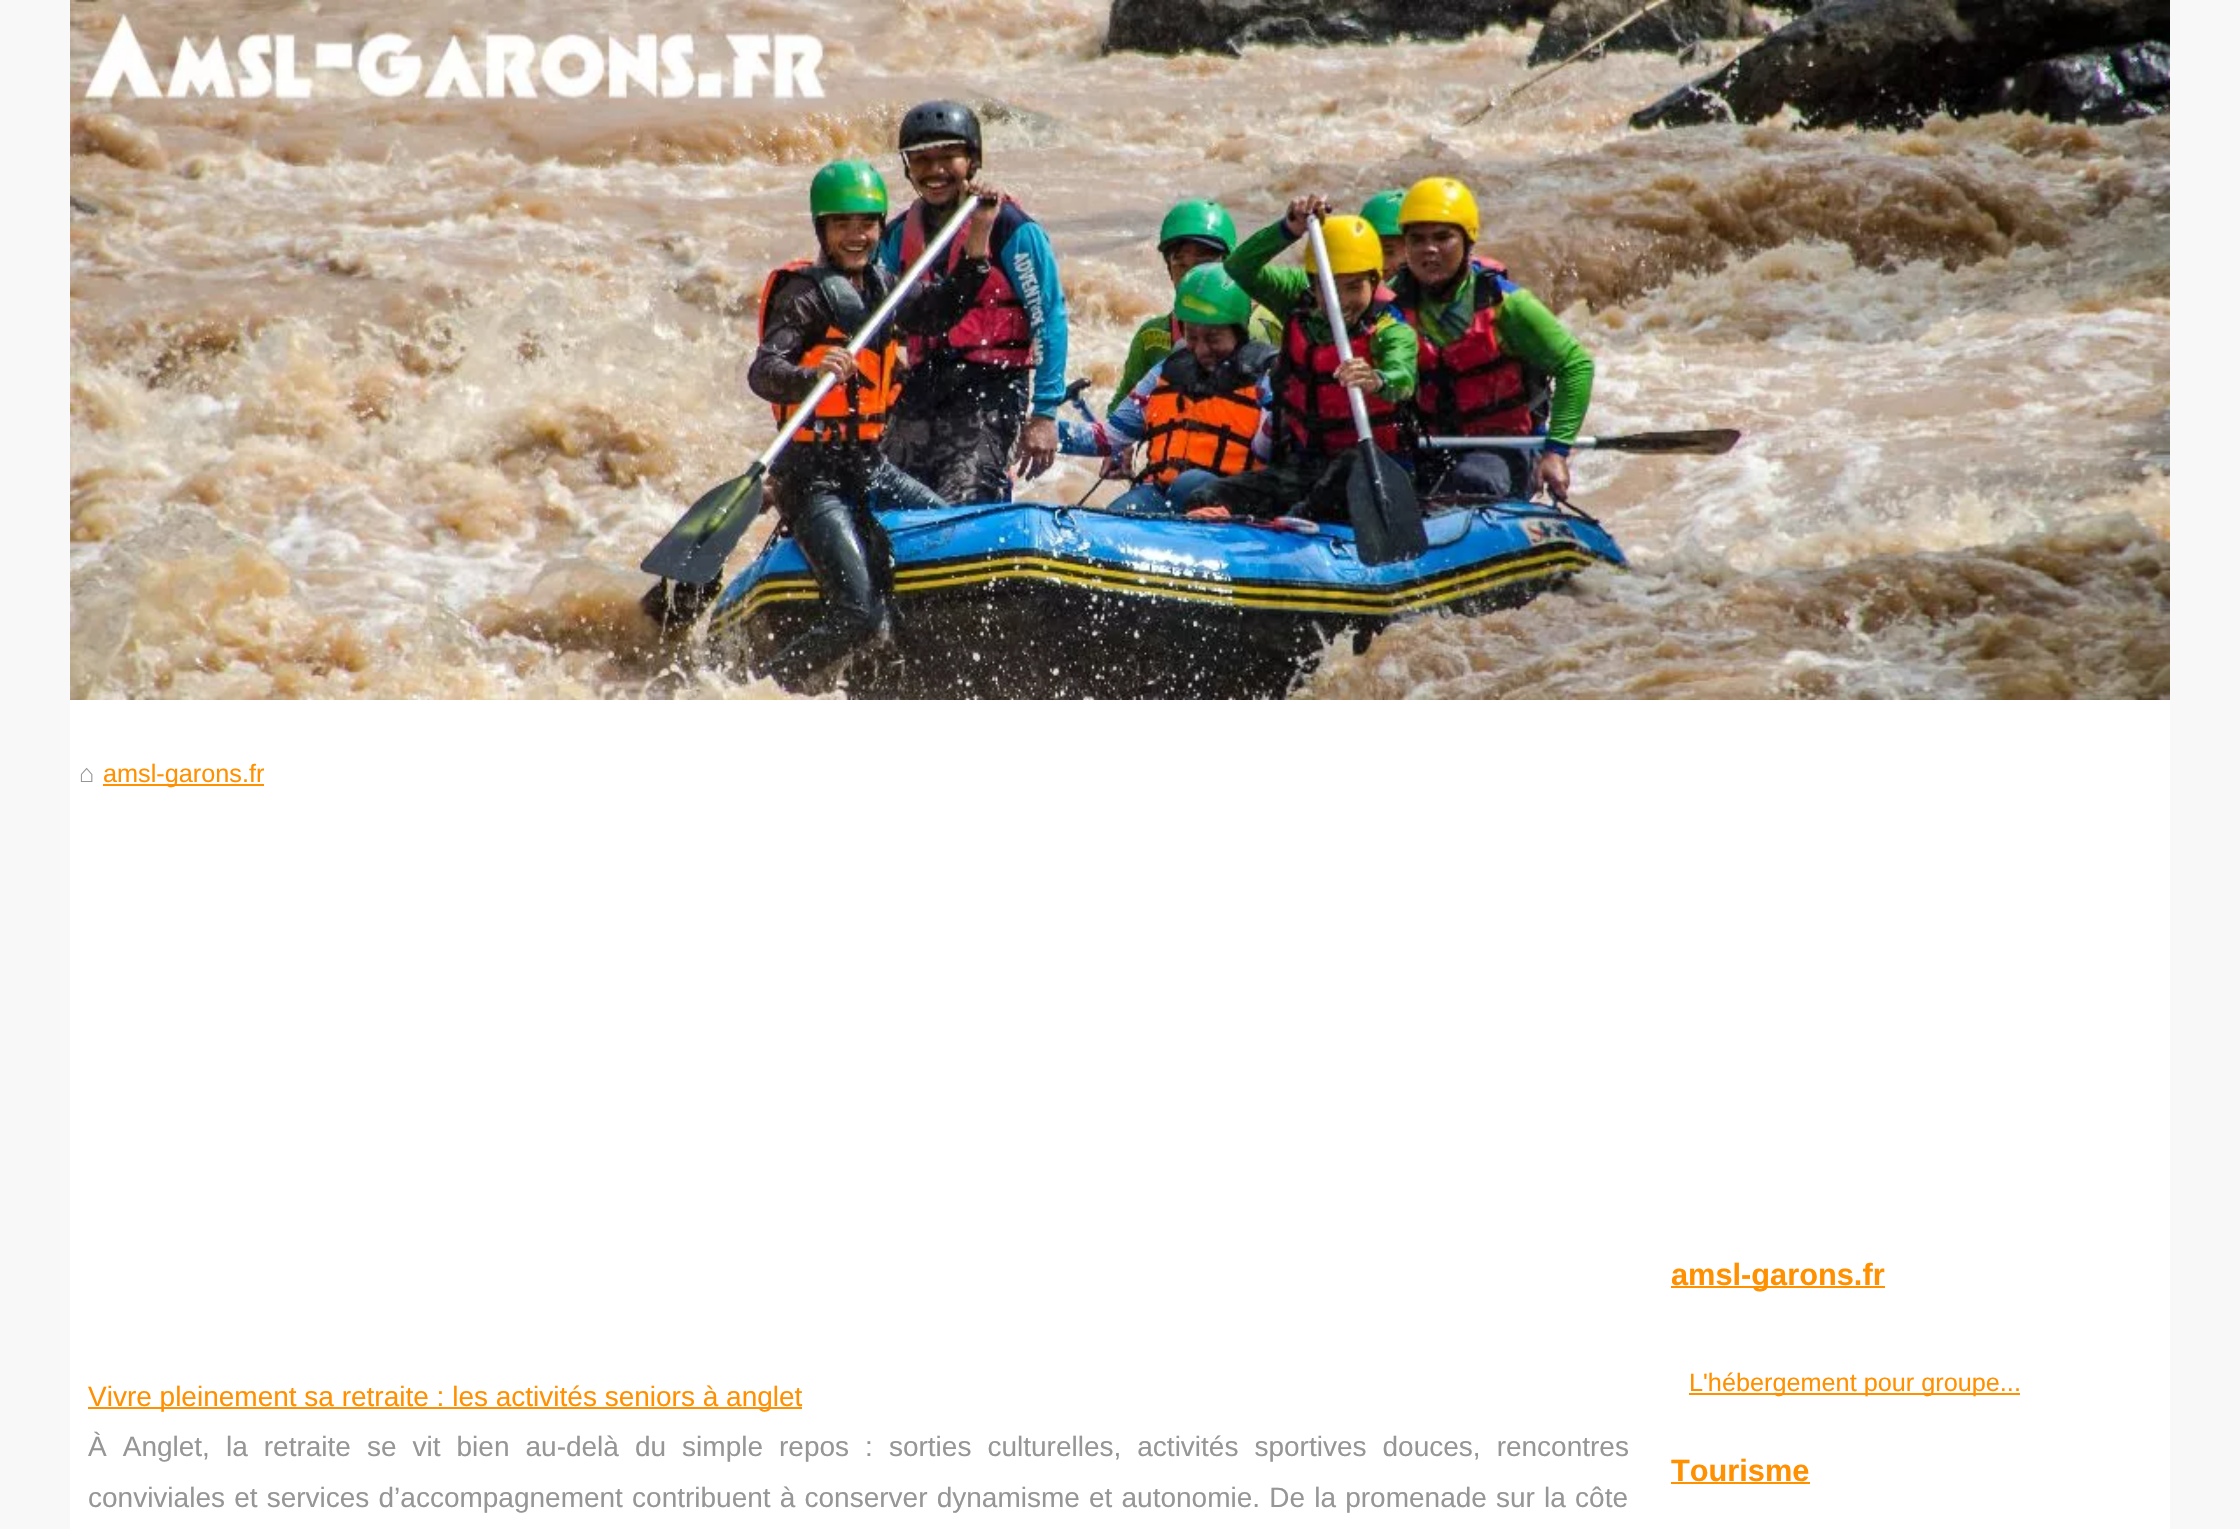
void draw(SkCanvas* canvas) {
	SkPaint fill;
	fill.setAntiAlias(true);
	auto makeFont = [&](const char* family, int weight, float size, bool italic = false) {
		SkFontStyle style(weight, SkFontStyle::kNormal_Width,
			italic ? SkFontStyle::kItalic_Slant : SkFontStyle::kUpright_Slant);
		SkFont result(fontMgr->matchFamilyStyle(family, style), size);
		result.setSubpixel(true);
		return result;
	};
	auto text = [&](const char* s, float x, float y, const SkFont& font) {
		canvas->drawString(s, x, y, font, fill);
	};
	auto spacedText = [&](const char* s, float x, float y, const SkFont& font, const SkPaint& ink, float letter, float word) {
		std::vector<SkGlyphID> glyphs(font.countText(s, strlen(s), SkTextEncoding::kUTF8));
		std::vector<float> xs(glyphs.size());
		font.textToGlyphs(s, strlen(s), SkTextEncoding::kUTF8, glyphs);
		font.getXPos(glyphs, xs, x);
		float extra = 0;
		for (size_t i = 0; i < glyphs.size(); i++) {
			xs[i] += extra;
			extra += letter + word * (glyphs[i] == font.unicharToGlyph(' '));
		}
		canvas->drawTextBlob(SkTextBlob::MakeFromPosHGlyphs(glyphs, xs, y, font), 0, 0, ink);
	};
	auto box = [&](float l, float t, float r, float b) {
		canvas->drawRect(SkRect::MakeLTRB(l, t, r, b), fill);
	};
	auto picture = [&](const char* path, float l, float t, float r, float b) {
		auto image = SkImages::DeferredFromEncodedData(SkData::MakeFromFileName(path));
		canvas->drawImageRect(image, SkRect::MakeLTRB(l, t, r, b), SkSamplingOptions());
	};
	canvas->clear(0xFFF8F8F8);
	picture("image0.png", 70, 0, 2170, 700);
	fill.setColor(0xFFFFFFFF);
	box(70, 700, 2170, 1529);
	fill.setColor(0xFFFF9000);
	box(103, 784, 264, 786);
	box(88, 1407, 802, 1409);
	box(1671, 1286, 1885, 1288);
	box(1689, 1393, 2020, 1395);
	box(1671, 1482, 1810, 1484);
	auto font1 = makeFont("Liberation Sans", 400, 25.25f);
	fill.setColor(0xFF969696);
	text("⌂", 79, 782, font1);
	fill.setColor(0xFFFF9000);
	text("amsl-garons.fr", 103, 782, font1);
	auto font2 = makeFont("Liberation Sans", 400, 28);
	text("Vivre pleinement sa retraite : les activités seniors à anglet", 88, 1406, font2);
	fill.setColor(0xFF969696);
	spacedText("À Anglet, la retraite se vit bien au-delà du simple repos : sorties culturelles, activités sportives douces, rencontres", 88, 1456, font2, fill, 0, 8.25f);
	spacedText("conviviales et services d’accompagnement contribuent à conserver dynamisme et autonomie. De la promenade sur la côte", 88, 1507, font2, fill, 0, 1.4f);
	auto font3 = makeFont("Liberation Sans", 700, 30.75f);
	fill.setColor(0xFFFF9000);
	text("amsl-garons.fr", 1671, 1285, font3);
	text("L'hébergement pour groupe...", 1689, 1391, font1);
	text("Tourisme", 1671, 1481, font3);
}
